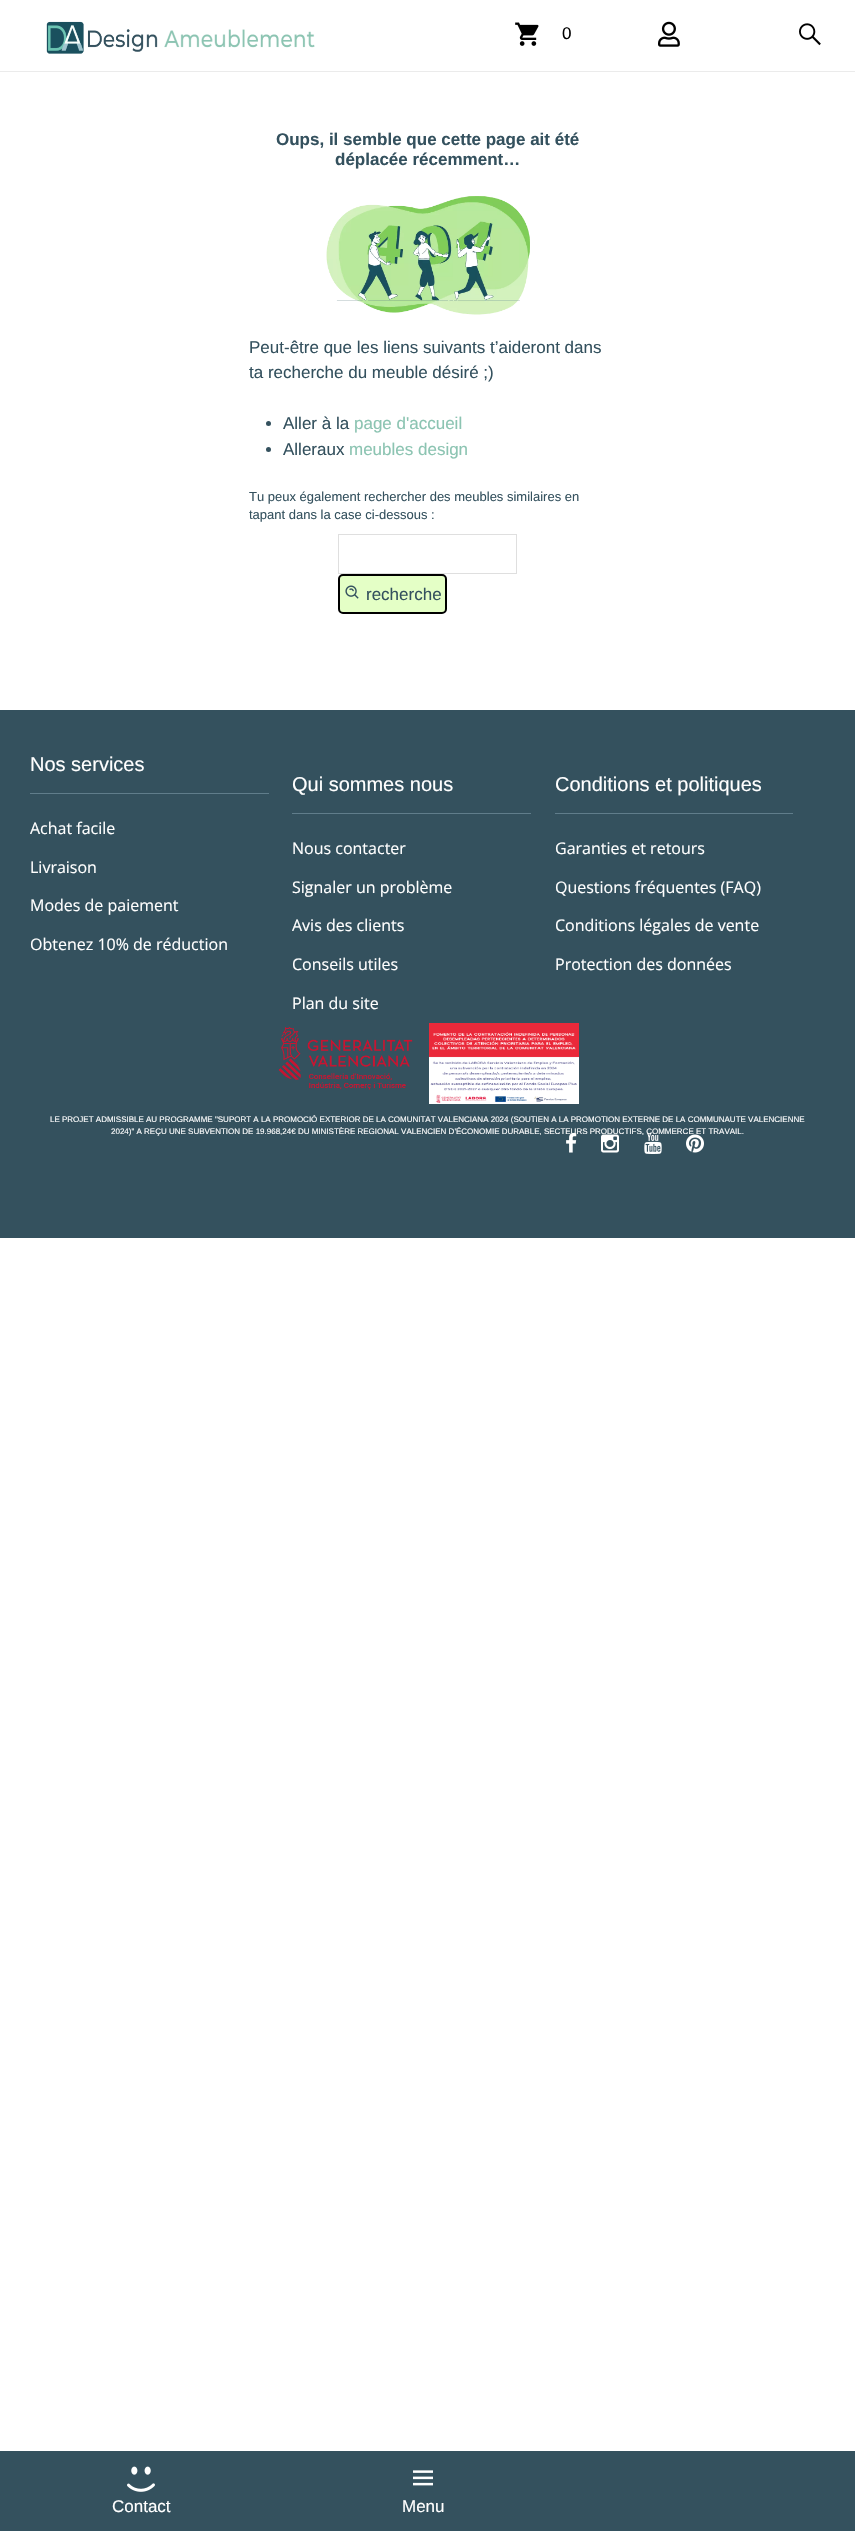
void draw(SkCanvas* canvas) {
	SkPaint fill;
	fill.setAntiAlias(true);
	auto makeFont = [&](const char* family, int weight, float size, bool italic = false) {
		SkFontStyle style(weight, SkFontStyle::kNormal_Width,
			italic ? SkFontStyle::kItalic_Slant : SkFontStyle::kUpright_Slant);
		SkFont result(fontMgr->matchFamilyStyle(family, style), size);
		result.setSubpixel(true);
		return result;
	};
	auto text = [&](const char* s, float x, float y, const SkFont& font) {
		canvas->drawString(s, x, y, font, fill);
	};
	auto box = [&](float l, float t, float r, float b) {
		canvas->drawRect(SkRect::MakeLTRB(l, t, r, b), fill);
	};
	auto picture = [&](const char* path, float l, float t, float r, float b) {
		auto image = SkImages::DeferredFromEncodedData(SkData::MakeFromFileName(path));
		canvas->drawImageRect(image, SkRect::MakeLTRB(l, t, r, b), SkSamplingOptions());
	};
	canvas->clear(0xFFFFFFFF);
	fill.setColor(0xFFEBEBEB);
	box(0, 71, 855, 72);
	picture("image0.png", 46, 21, 315, 54);
	picture("image1.png", 515, 22, 539, 46);
	picture("image2.png", 658, 21, 680, 47);
	picture("image3.png", 799, 23, 821, 46);
	fill.setColor(0xFF34515E);
	box(0, 2451, 855, 2531);
	picture("image4.png", 127, 2466, 155, 2492);
	picture("image5.png", 413, 2470, 433, 2486);
	picture("image6.png", 326, 196, 530, 315);
	canvas->drawCircle(268.5f, 423.5f, 2.5f, fill);
	canvas->drawCircle(268.5f, 449.5f, 2.5f, fill);
	fill.setStyle(SkPaint::kStroke_Style);
	fill.setStrokeWidth(1);
	fill.setColor(0xFFDFDFDF);
	canvas->drawRect(SkRect::MakeLTRB(338.5f, 534.5f, 516.5f, 573.5f), fill);
	fill.setStyle(SkPaint::kFill_Style);
	fill.setColor(0xFFE4FFC6);
	canvas->drawRoundRect(SkRect::MakeLTRB(339, 575, 446, 613), 4, 4, fill);
	fill.setStyle(SkPaint::kStroke_Style);
	fill.setStrokeWidth(2);
	fill.setColor(0xFF000000);
	canvas->drawRoundRect(SkRect::MakeLTRB(339, 575, 446, 613), 4, 4, fill);
	picture("image7.png", 345, 585, 359, 599);
	fill.setStyle(SkPaint::kFill_Style);
	fill.setColor(0xFF34515E);
	box(0, 710, 855, 1238);
	fill.setColor(0xFF607D8B);
	box(30, 793, 269, 794);
	box(292, 813, 531, 814);
	box(555, 813, 793, 814);
	picture("image8.png", 566, 1133, 577, 1153);
	picture("image9.png", 601, 1134, 619, 1153);
	picture("image10.png", 644, 1133, 662, 1154);
	picture("image11.png", 686, 1134, 704, 1153);
	picture("image12.png", 278, 1026, 413, 1090);
	picture("image13.png", 429, 1023, 579, 1104);
	auto font1 = makeFont("Liberation Sans", 400, 17);
	fill.setColor(0xFF000000);
	text("0", 562, 39, font1);
	fill.setColor(0xFFFFFFFF);
	text("Contact", 112, 2512, font1);
	text("Menu", 402, 2512, font1);
	auto font2 = makeFont("Liberation Sans", 700, 17);
	fill.setColor(0xFF34515E);
	text("Oups, il semble que cette page ait été", 276, 145, font2);
	text("déplacée récemment…", 335, 165, font2);
	text("Peut-être que les liens suivants t’aideront dans", 249, 353, font1);
	text("ta recherche du meuble désiré ;)", 249, 378, font1);
	text("Aller à la", 283, 429, font1);
	fill.setColor(0xFF8CC4B2);
	text("page d'accueil", 354, 429, font1);
	fill.setColor(0xFF34515E);
	text("Alleraux", 283, 455, font1);
	fill.setColor(0xFF8CC4B2);
	text("meubles design", 349, 455, font1);
	auto font3 = makeFont("Liberation Sans", 400, 13);
	fill.setColor(0xFF34515E);
	text("Tu peux également rechercher des meubles similaires en", 249, 501, font3);
	text("tapant dans la case ci-dessous :", 249, 519, font3);
	text("recherche", 366, 600, font1);
	auto font4 = makeFont("Liberation Sans", 400, 20);
	fill.setColor(0xFFFFFFFF);
	text("Nos services", 30, 771, font4);
	auto font5 = makeFont("Open Sans", 400, 16);
	text("Achat facile", 30, 834, font5);
	text("Livraison", 30, 873, font5);
	text("Modes de paiement", 30, 911, font5);
	text("Obtenez 10% de réduction", 30, 950, font5);
	text("Qui sommes nous", 292, 791, font4);
	text("Nous contacter", 292, 854, font5);
	text("Signaler un problème", 292, 893, font5);
	text("Avis des clients", 292, 931, font5);
	text("Conseils utiles", 292, 970, font5);
	text("Plan du site", 292, 1009, font5);
	text("Conditions et politiques", 555, 791, font4);
	text("Garanties et retours", 555, 854, font5);
	text("Questions fréquentes (FAQ)", 555, 893, font5);
	text("Conditions légales de vente", 555, 931, font5);
	text("Protection des données", 555, 970, font5);
	auto font6 = makeFont("Liberation Sans", 400, 8);
	text("LE PROJET ADMISSIBLE AU PROGRAMME \"SUPORT A LA PROMOCIÓ EXTERIOR DE LA COMUNITAT VALENCIANA 2024 (SOUTIEN A LA PROMOTION EXTERNE DE LA COMMUNAUTE VALENCIENNE", 50, 1122, font6);
	text("2024)\" A REÇU UNE SUBVENTION DE 19.968,24€ DU MINISTÈRE REGIONAL VALENCIEN D'ÉCONOMIE DURABLE, SECTEURS PRODUCTIFS, COMMERCE ET TRAVAIL.", 111, 1134, font6);
}
